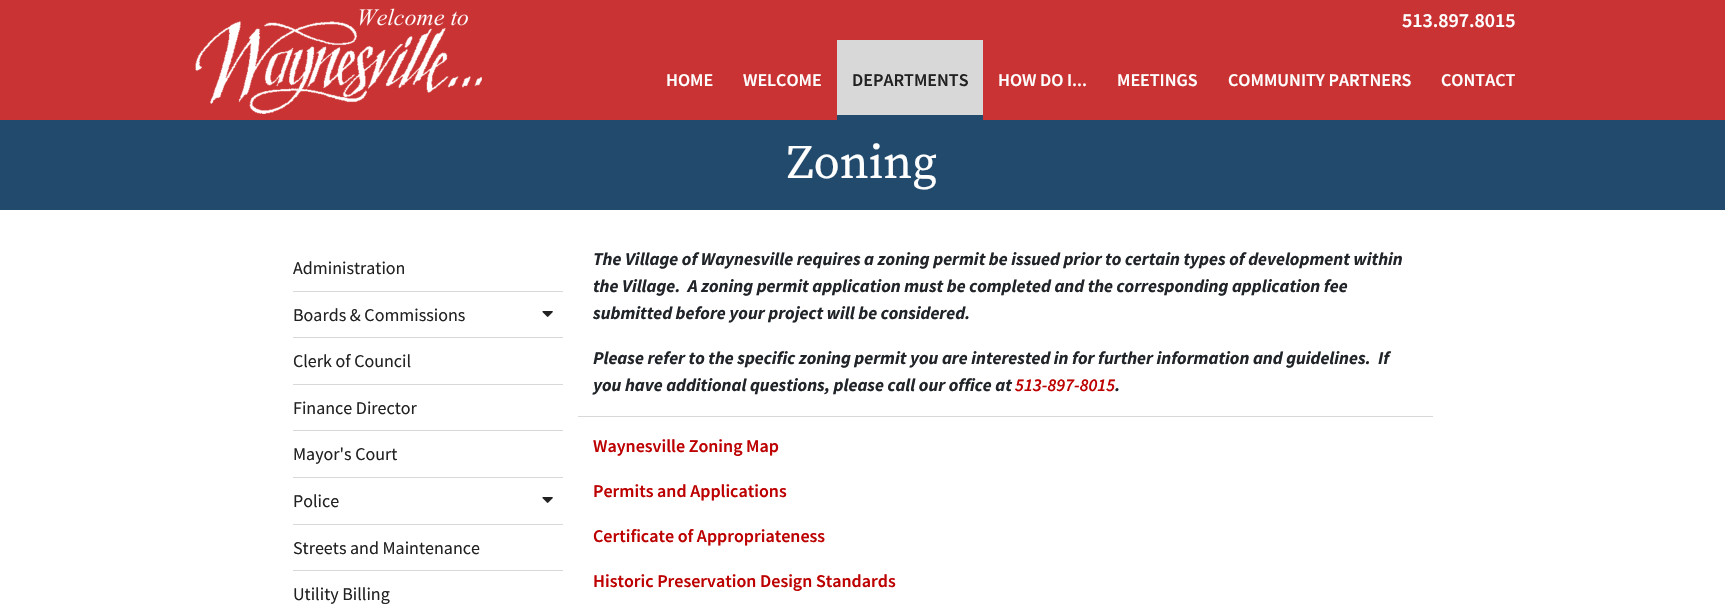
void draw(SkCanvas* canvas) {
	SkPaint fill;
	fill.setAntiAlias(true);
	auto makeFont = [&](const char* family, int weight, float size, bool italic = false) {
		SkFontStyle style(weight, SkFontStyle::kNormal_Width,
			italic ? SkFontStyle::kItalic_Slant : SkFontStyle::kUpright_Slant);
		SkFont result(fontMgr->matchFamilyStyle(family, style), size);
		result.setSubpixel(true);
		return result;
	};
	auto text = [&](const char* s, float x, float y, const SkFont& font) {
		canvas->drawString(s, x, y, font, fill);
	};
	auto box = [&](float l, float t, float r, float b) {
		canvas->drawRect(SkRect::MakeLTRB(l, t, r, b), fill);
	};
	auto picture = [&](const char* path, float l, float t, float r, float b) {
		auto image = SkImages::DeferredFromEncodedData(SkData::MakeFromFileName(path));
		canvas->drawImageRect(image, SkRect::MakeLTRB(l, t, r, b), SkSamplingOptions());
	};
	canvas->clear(0xFFFFFFFF);
	fill.setColor(0xFFCA3333);
	box(0, 0, 1725, 120);
	picture("image0.png", 195, 8, 482, 114);
	fill.setColor(0xFFD8D8D8);
	box(837, 40, 983, 115);
	fill.setColor(0xFF224A6C);
	box(837, 115, 983, 120);
	box(0, 120, 1725, 210);
	fill.setColor(0xFFD8D8D8);
	box(293, 291, 563, 292);
	picture("image1.png", 542, 311, 553, 317);
	box(293, 337, 563, 338);
	box(293, 384, 563, 385);
	box(293, 430, 563, 431);
	box(293, 477, 563, 478);
	picture("image1.png", 542, 497, 553, 503);
	box(293, 524, 563, 525);
	box(293, 570, 563, 571);
	box(578, 416, 1433, 417);
	auto font1 = makeFont("Source Sans Pro", 600, 20);
	fill.setColor(0xFFFFFFFF);
	text("513.897.8015", 1402, 27, font1);
	auto font2 = makeFont("Source Sans Pro", 600, 18);
	text("HOME", 666, 86, font2);
	text("WELCOME", 743, 86, font2);
	fill.setColor(0xFF222222);
	text("DEPARTMENTS", 852, 86, font2);
	fill.setColor(0xFFFFFFFF);
	text("HOW DO I...", 998, 86, font2);
	text("MEETINGS", 1117, 86, font2);
	text("COMMUNITY PARTNERS", 1228, 86, font2);
	text("CONTACT", 1441, 86, font2);
	auto font3 = makeFont("Source Serif Pro", 400, 48);
	text("Zoning", 787, 178, font3);
	auto font4 = makeFont("Source Sans Pro", 400, 18);
	fill.setColor(0xFF222222);
	text("Administration", 293, 274, font4);
	text("Boards & Commissions", 293, 321, font4);
	text("Clerk of Council", 293, 367, font4);
	text("Finance Director", 293, 414, font4);
	text("Mayor's Court", 293, 460, font4);
	text("Police", 293, 507, font4);
	text("Streets and Maintenance", 293, 554, font4);
	text("Utility Billing", 293, 600, font4);
	auto font5 = makeFont("Source Sans Pro", 700, 18, true);
	fill.setColor(0xFF212529);
	text("The Village of Waynesville requires a zoning permit be issued prior to certain types of development within", 593, 265, font5);
	text("the Village.  A zoning permit application must be completed and the corresponding application fee", 593, 292, font5);
	text("submitted before your project will be considered.", 593, 319, font5);
	text("Please refer to the specific zoning permit you are interested in for further information and guidelines.  If", 593, 364, font5);
	text("you have additional questions, please call our office at", 593, 391, font5);
	auto font6 = makeFont("Source Sans Pro", 600, 18, true);
	fill.setColor(0xFFBD0000);
	text("513-897-8015", 1015, 391, font6);
	fill.setColor(0xFF212529);
	text(".", 1115, 391, font5);
	fill.setColor(0xFFBD0000);
	text("Waynesville Zoning Map", 593, 452, font2);
	text("Permits and Applications", 593, 497, font2);
	text("Certificate of Appropriateness", 593, 542, font2);
	text("Historic Preservation Design Standards", 593, 587, font2);
}
